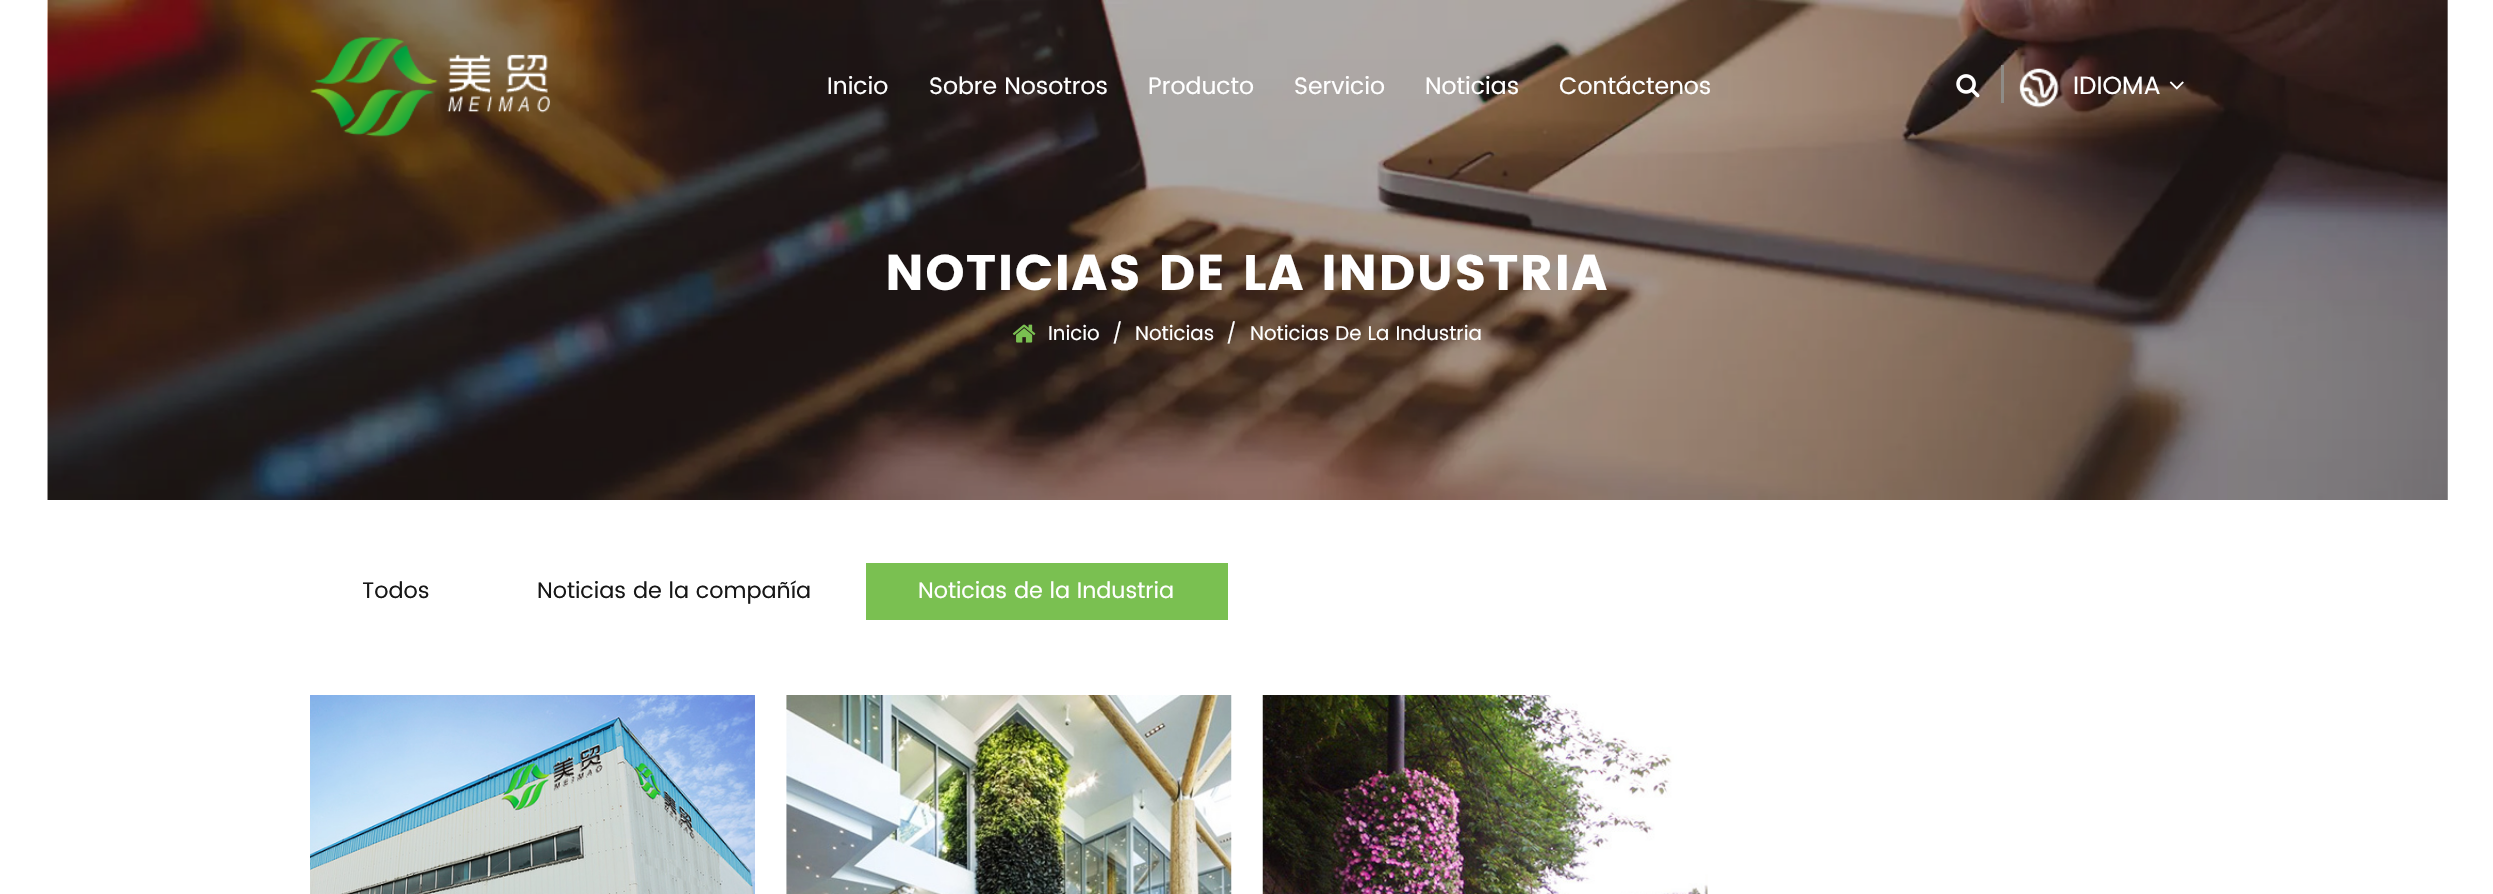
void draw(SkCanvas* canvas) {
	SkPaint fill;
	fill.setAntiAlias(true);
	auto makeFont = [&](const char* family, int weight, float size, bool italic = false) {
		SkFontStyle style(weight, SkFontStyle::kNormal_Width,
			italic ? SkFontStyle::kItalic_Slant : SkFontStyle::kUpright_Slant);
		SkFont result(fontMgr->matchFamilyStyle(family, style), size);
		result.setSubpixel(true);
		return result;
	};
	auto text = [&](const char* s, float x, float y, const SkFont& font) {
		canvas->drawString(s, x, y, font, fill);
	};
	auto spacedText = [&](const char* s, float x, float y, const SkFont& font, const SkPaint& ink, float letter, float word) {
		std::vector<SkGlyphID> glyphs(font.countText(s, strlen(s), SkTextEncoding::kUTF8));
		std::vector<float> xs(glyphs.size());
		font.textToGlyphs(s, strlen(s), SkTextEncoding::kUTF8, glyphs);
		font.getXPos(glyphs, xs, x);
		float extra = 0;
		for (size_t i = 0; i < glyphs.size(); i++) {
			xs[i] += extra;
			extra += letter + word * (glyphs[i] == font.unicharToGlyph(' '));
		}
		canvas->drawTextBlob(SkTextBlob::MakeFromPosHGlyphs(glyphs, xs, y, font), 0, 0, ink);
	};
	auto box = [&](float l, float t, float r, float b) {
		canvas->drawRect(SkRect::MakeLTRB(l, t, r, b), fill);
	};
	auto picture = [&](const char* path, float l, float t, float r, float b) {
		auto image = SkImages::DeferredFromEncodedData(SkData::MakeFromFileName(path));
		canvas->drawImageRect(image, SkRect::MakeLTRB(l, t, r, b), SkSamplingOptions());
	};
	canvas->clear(0xFFFFFFFF);
	fill.setColor(0xFFB3B3B3);
	box(2447, 0, 2448, 500);
	picture("image4.png", 47, 0, 2448, 500);
	picture("image0.png", 310, 37, 550, 137);
	picture("image1.png", 1956, 74, 1980, 98);
	fill.setColor(0xFF8F8C87);
	box(2001, 65, 2004, 103);
	picture("image2.png", 2019, 68, 2059, 108);
	picture("image3.png", 2169, 81, 2184, 90);
	picture("image5.png", 1012, 324, 1036, 343);
	fill.setColor(0xFF7AC051);
	box(866, 563, 1228, 620);
	picture("image6.png", 310, 695, 755, 894);
	picture("image7.png", 786, 695, 1232, 894);
	picture("image8.png", 1262, 695, 1708, 894);
	auto font1 = makeFont("Poppins", 400, 23.75f);
	fill.setColor(0xFFFFFFFF);
	text("Inicio", 827, 94, font1);
	text("Sobre Nosotros", 929, 94, font1);
	text("Producto", 1148, 94, font1);
	text("Servicio", 1294, 94, font1);
	text("Noticias", 1425, 94, font1);
	text("Contáctenos", 1559, 94, font1);
	auto font2 = makeFont("Poppins", 400, 25);
	text("IDIOMA", 2073, 94, font2);
	auto font3 = makeFont("Poppins", 700, 50);
	spacedText("NOTICIAS DE LA INDUSTRIA", 885, 290, font3, fill, 1.25f, 0);
	auto font4 = makeFont("Poppins", 400, 20);
	text("Inicio", 1048, 340, font4);
	text("/", 1112, 340, font4);
	text("Noticias", 1135, 340, font4);
	text("/", 1226, 340, font4);
	text("Noticias De La Industria", 1250, 340, font4);
	auto font5 = makeFont("Poppins", 400, 22.5f);
	fill.setColor(0xFF171717);
	text("Todos", 362, 598, font5);
	text("Noticias de la compañía", 537, 598, font5);
	fill.setColor(0xFFFFFFFF);
	text("Noticias de la Industria", 918, 598, font5);
}
